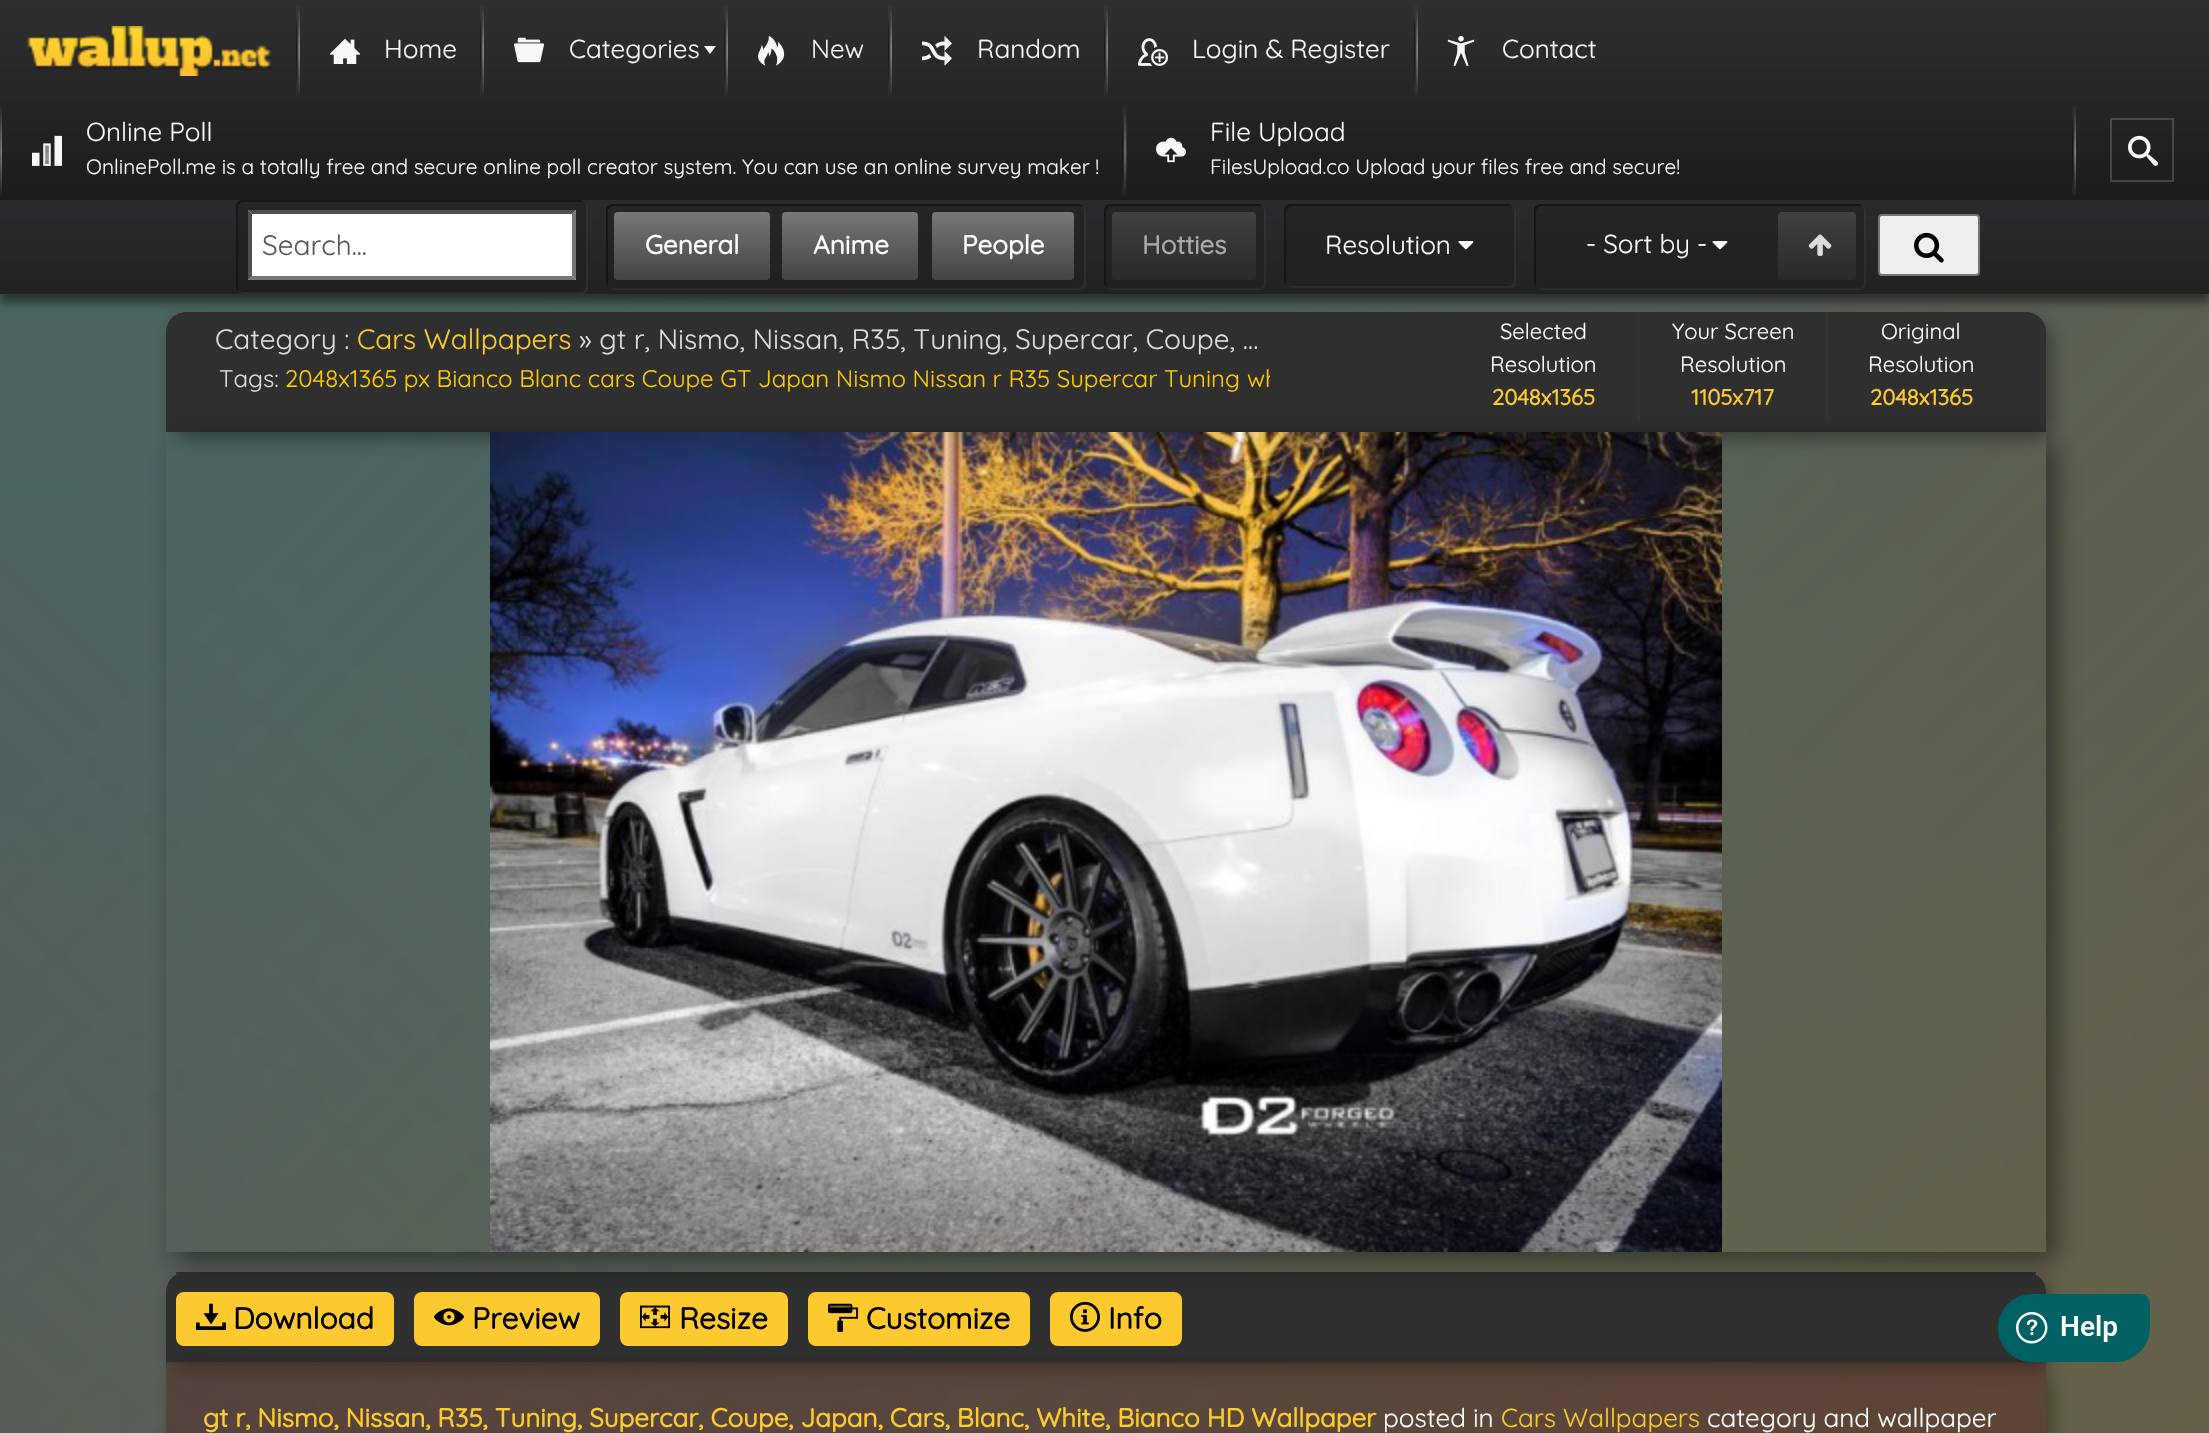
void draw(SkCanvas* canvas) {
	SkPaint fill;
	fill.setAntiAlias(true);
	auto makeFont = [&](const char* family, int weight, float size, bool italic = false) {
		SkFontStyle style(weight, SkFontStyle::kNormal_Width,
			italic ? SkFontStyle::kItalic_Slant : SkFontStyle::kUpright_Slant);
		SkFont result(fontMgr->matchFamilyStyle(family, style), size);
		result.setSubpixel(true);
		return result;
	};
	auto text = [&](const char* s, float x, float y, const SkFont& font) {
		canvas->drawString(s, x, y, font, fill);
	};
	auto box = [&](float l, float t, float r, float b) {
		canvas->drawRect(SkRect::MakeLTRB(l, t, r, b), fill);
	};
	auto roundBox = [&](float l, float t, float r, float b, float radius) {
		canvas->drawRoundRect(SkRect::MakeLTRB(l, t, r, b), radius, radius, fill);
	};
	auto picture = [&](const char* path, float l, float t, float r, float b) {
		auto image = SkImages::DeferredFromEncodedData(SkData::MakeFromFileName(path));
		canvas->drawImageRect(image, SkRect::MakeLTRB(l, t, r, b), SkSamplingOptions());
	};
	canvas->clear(0xFFFFFFFF);
	{
		const SkColor colors[] = {0xFF7F5429, 0xFF97973A};
		const float stops[] = {0.1f, 0.8f};
		const SkPoint ends[] = {{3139, 929}, {-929, 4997}};
		fill.setShader(SkGradientShader::MakeLinear(ends, colors, stops, 2, SkTileMode::kClamp));
		fill.setAlpha(255);
	}
	box(0, 294, 2209, 1433);
	{
		const SkColor colors[] = {0xFF4A6462, 0x004A6462};
		const float stops[] = {0.1f, 0.8f};
		const SkPoint ends[] = {{-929, 929}, {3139, 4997}};
		fill.setShader(SkGradientShader::MakeLinear(ends, colors, stops, 2, SkTileMode::kClamp));
		fill.setAlpha(255);
	}
	box(0, 294, 2209, 1433);
	{
		const SkColor colors[] = {0xFF693735, 0x00693735};
		const float stops[] = {0, 0.7f};
		const SkPoint ends[] = {{-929, 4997}, {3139, 929}};
		fill.setShader(SkGradientShader::MakeLinear(ends, colors, stops, 2, SkTileMode::kClamp));
		fill.setAlpha(255);
	}
	box(0, 488, 945, 1433);
	fill.setShader(nullptr);
	fill.setColor(0x80000000);
	fill.setMaskFilter(SkMaskFilter::MakeBlur(kNormal_SkBlurStyle, 5));
	canvas->drawRect(SkRect::MakeLTRB(0, 210, 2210, 302), fill);
	fill.setMaskFilter(nullptr);
	fill.setStyle(SkPaint::kStroke_Style);
	fill.setStrokeWidth(2);
	fill.setColor(0xFF222222);
	canvas->drawRect(SkRect::MakeLTRB(-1, 199, 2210, 293), fill);
	fill.setStyle(SkPaint::kFill_Style);
	{
		const SkColor colors[] = {0xFF2F2F2F, 0xFF1C1C1C};
		const float stops[] = {0, 1};
		const SkPoint ends[] = {{1105, 0}, {1105, 200}};
		fill.setShader(SkGradientShader::MakeLinear(ends, colors, stops, 2, SkTileMode::kClamp));
		fill.setAlpha(255);
	}
	box(0, 0, 2209, 200);
	picture("image0.png", 27, 26, 271, 76);
	picture("image1.png", 296, 6, 300, 96);
	picture("image2.png", 330, 38, 360, 64);
	picture("image1.png", 480, 6, 484, 96);
	picture("image3.png", 514, 37, 544, 63);
	fill.setShader(nullptr);
	fill.setColor(0xFFF8F8F8);
	canvas->drawPath(SkPathBuilder().moveTo(704, 46).lineTo(716, 46).lineTo(710, 54).close().detach(), fill);
	picture("image1.png", 724, 6, 728, 96);
	picture("image4.png", 758, 36, 785, 66);
	picture("image1.png", 888, 6, 892, 96);
	picture("image5.png", 922, 36, 952, 66);
	picture("image1.png", 1104, 6, 1108, 96);
	picture("image6.png", 1138, 38, 1168, 66);
	picture("image1.png", 1414, 6, 1418, 96);
	picture("image7.png", 1447, 35, 1475, 66);
	picture("image8.png", 0, 106, 2, 196);
	picture("image9.png", 32, 135, 62, 166);
	picture("image10.png", 1122, 106, 1127, 196);
	picture("image11.png", 1156, 137, 1186, 163);
	picture("image12.png", 2072, 106, 2076, 196);
	fill.setStyle(SkPaint::kStroke_Style);
	fill.setColor(0x66808080);
	canvas->drawRect(SkRect::MakeLTRB(2111, 119, 2173, 181), fill);
	picture("image13.png", 2128, 135, 2158, 166);
	fill.setStyle(SkPaint::kFill_Style);
	{
		const SkColor colors[] = {0xFF292C2F, 0xFF222222};
		const float stops[] = {0, 1};
		const SkPoint ends[] = {{1105, 200}, {1105, 292}};
		fill.setShader(SkGradientShader::MakeLinear(ends, colors, stops, 2, SkTileMode::kClamp));
		fill.setAlpha(255);
	}
	box(0, 200, 2209, 292);
	fill.setShader(nullptr);
	fill.setColor(0x1A7F7F7F);
	canvas->drawPath(SkPathBuilder().moveTo(239, 291).cubicTo(240, 293, 242, 294, 244, 294).lineTo(582, 294).cubicTo(585, 294, 588, 291, 588, 288).lineTo(588, 208).cubicTo(588, 206, 587, 204, 585, 203).lineTo(586, 206).lineTo(586, 286).cubicTo(586, 289, 583, 292, 580, 292).lineTo(242, 292).close().detach(), fill);
	fill.setColor(0x801E1E1E);
	roundBox(236, 200, 586, 292, 6);
	fill.setColor(0x66000000);
	canvas->drawPath(SkPathBuilder().moveTo(244, 202).lineTo(582, 202).cubicTo(583, 202, 584, 202, 585, 203).cubicTo(584, 201, 582, 200, 580, 200).lineTo(242, 200).cubicTo(239, 200, 236, 203, 236, 206).lineTo(236, 286).cubicTo(236, 288, 237, 290, 239, 291).cubicTo(238, 290, 238, 289, 238, 288).lineTo(238, 208).cubicTo(238, 205, 241, 202, 244, 202).close().detach(), fill);
	fill.setColor(0xFFFFFFFF);
	box(248, 210, 576, 280);
	fill.setColor(0xFF4F4F4F);
	canvas->drawPath(SkPathBuilder().moveTo(248, 210).lineTo(576, 210).lineTo(572, 214).lineTo(252, 214).close().detach(), fill);
	fill.setColor(0xFF767676);
	canvas->drawPath(SkPathBuilder().moveTo(576, 210).lineTo(576, 280).lineTo(572, 276).lineTo(572, 214).close().detach(), fill);
	canvas->drawPath(SkPathBuilder().moveTo(576, 280).lineTo(248, 280).lineTo(252, 276).lineTo(572, 276).close().detach(), fill);
	fill.setColor(0xFF4F4F4F);
	canvas->drawPath(SkPathBuilder().moveTo(248, 280).lineTo(248, 210).lineTo(252, 214).lineTo(252, 276).close().detach(), fill);
	fill.setColor(0x1A7F7F7F);
	canvas->drawPath(SkPathBuilder().moveTo(609, 287).cubicTo(610, 289, 612, 290, 614, 290).lineTo(1080, 290).cubicTo(1083, 290, 1086, 287, 1086, 284).lineTo(1086, 212).cubicTo(1086, 210, 1085, 208, 1083, 207).lineTo(1084, 210).lineTo(1084, 282).cubicTo(1084, 285, 1081, 288, 1078, 288).lineTo(612, 288).close().detach(), fill);
	fill.setColor(0x801E1E1E);
	roundBox(606, 204, 1084, 288, 6);
	fill.setColor(0x66000000);
	canvas->drawPath(SkPathBuilder().moveTo(614, 206).lineTo(1080, 206).lineTo(1083, 207).cubicTo(1082, 205, 1080, 204, 1078, 204).lineTo(612, 204).cubicTo(609, 204, 606, 207, 606, 210).lineTo(606, 282).cubicTo(606, 284, 607, 286, 609, 287).cubicTo(608, 286, 608, 285, 608, 284).lineTo(608, 212).cubicTo(608, 209, 611, 206, 614, 206).close().detach(), fill);
	{
		const SkColor colors[] = {0xFF777777, 0xFF444444};
		const float stops[] = {0, 1};
		const SkPoint ends[] = {{692, 212}, {692, 280}};
		fill.setShader(SkGradientShader::MakeLinear(ends, colors, stops, 2, SkTileMode::kClamp));
		fill.setAlpha(255);
	}
	roundBox(614, 212, 770, 280, 4);
	{
		const SkColor colors[] = {0xFF777777, 0xFF444444};
		const float stops[] = {0, 1};
		const SkPoint ends[] = {{850, 212}, {850, 280}};
		fill.setShader(SkGradientShader::MakeLinear(ends, colors, stops, 2, SkTileMode::kClamp));
		fill.setAlpha(255);
	}
	roundBox(782, 212, 918, 280, 4);
	{
		const SkColor colors[] = {0xFF777777, 0xFF444444};
		const float stops[] = {0, 1};
		const SkPoint ends[] = {{1003, 212}, {1003, 280}};
		fill.setShader(SkGradientShader::MakeLinear(ends, colors, stops, 2, SkTileMode::kClamp));
		fill.setAlpha(255);
	}
	roundBox(932, 212, 1074, 280, 4);
	fill.setShader(nullptr);
	fill.setColor(0x1A7F7F7F);
	canvas->drawPath(SkPathBuilder().moveTo(1107, 287).cubicTo(1108, 289, 1110, 290, 1112, 290).lineTo(1260, 290).cubicTo(1263, 290, 1266, 287, 1266, 284).lineTo(1266, 212).cubicTo(1266, 210, 1265, 208, 1263, 207).lineTo(1264, 210).lineTo(1264, 282).cubicTo(1264, 285, 1261, 288, 1258, 288).lineTo(1110, 288).close().detach(), fill);
	fill.setColor(0x801E1E1E);
	roundBox(1104, 204, 1264, 288, 6);
	fill.setColor(0x66000000);
	canvas->drawPath(SkPathBuilder().moveTo(1112, 206).lineTo(1260, 206).cubicTo(1261, 206, 1262, 206, 1263, 207).cubicTo(1262, 205, 1260, 204, 1258, 204).lineTo(1110, 204).cubicTo(1107, 204, 1104, 207, 1104, 210).lineTo(1104, 282).cubicTo(1104, 284, 1105, 286, 1107, 287).cubicTo(1106, 286, 1106, 285, 1106, 284).lineTo(1106, 212).cubicTo(1106, 209, 1109, 206, 1112, 206).close().detach(), fill);
	{
		const SkColor colors[] = {0xFF404040, 0xFF292929};
		const float stops[] = {0, 1};
		const SkPoint ends[] = {{1184, 212}, {1184, 280}};
		fill.setShader(SkGradientShader::MakeLinear(ends, colors, stops, 2, SkTileMode::kClamp));
		fill.setAlpha(255);
	}
	roundBox(1112, 212, 1256, 280, 4);
	fill.setShader(nullptr);
	fill.setColor(0x1A7F7F7F);
	canvas->drawPath(SkPathBuilder().moveTo(1287, 285).cubicTo(1288, 287, 1290, 288, 1292, 288).lineTo(1510, 288).cubicTo(1513, 288, 1516, 285, 1516, 282).lineTo(1516, 212).cubicTo(1516, 210, 1515, 208, 1513, 207).lineTo(1514, 210).lineTo(1514, 280).cubicTo(1514, 283, 1511, 286, 1508, 286).lineTo(1290, 286).close().detach(), fill);
	fill.setColor(0x801E1E1E);
	roundBox(1284, 204, 1514, 286, 6);
	fill.setColor(0x66000000);
	canvas->drawPath(SkPathBuilder().moveTo(1292, 206).lineTo(1510, 206).cubicTo(1511, 206, 1512, 206, 1513, 207).cubicTo(1512, 205, 1510, 204, 1508, 204).lineTo(1290, 204).cubicTo(1287, 204, 1284, 207, 1284, 210).lineTo(1284, 280).cubicTo(1284, 282, 1285, 284, 1287, 285).cubicTo(1286, 284, 1286, 283, 1286, 282).lineTo(1286, 212).cubicTo(1286, 209, 1289, 206, 1292, 206).close().detach(), fill);
	picture("image14.png", 1458, 241, 1474, 250);
	fill.setColor(0x1A7F7F7F);
	canvas->drawPath(SkPathBuilder().moveTo(1537, 287).cubicTo(1538, 289, 1540, 290, 1542, 290).lineTo(1860, 290).cubicTo(1863, 290, 1866, 287, 1866, 284).lineTo(1866, 212).cubicTo(1866, 210, 1865, 208, 1863, 207).lineTo(1864, 210).lineTo(1864, 282).cubicTo(1864, 285, 1861, 288, 1858, 288).lineTo(1540, 288).close().detach(), fill);
	fill.setColor(0x801E1E1E);
	roundBox(1534, 204, 1864, 288, 6);
	fill.setColor(0x66000000);
	canvas->drawPath(SkPathBuilder().moveTo(1542, 206).lineTo(1860, 206).cubicTo(1861, 206, 1862, 206, 1863, 207).cubicTo(1862, 205, 1860, 204, 1858, 204).lineTo(1540, 204).cubicTo(1537, 204, 1534, 207, 1534, 210).lineTo(1534, 282).cubicTo(1534, 284, 1535, 286, 1537, 287).cubicTo(1536, 286, 1536, 285, 1536, 284).lineTo(1536, 212).cubicTo(1536, 209, 1539, 206, 1542, 206).close().detach(), fill);
	picture("image14.png", 1712, 241, 1728, 250);
	{
		const SkColor colors[] = {0xFF404040, 0xFF292929};
		const float stops[] = {0, 1};
		const SkPoint ends[] = {{1817, 212}, {1817, 280}};
		fill.setShader(SkGradientShader::MakeLinear(ends, colors, stops, 2, SkTileMode::kClamp));
		fill.setAlpha(255);
	}
	roundBox(1778, 212, 1856, 280, 4);
	picture("image15.png", 1808, 234, 1832, 256);
	fill.setShader(nullptr);
	fill.setColor(0xFFEFEFEF);
	canvas->drawRoundRect(SkRect::MakeLTRB(1879, 215, 1979, 275), 3, 3, fill);
	fill.setStyle(SkPaint::kStroke_Style);
	fill.setColor(0xFF767676);
	canvas->drawRoundRect(SkRect::MakeLTRB(1879, 215, 1979, 275), 3, 3, fill);
	picture("image16.png", 1914, 232, 1944, 263);
	fill.setStyle(SkPaint::kFill_Style);
	fill.setColor(0x57000000);
	fill.setMaskFilter(SkMaskFilter::MakeBlur(kNormal_SkBlurStyle, 9));
	canvas->drawRoundRect(SkRect::MakeLTRB(172, 320, 2052, 440), 20, 20, fill);
	fill.setMaskFilter(nullptr);
	fill.setColor(0xFF2F2F2F);
	canvas->drawPath(SkPathBuilder().moveTo(186, 312).lineTo(2026, 312).cubicTo(2037, 312, 2046, 321, 2046, 332).lineTo(2046, 432).lineTo(166, 432).lineTo(166, 332).cubicTo(166, 321, 175, 312, 186, 312).close().detach(), fill);
	fill.setColor(0xFF333333);
	box(1826, 312, 1828, 420);
	box(1638, 312, 1640, 420);
	fill.setColor(0x57000000);
	fill.setMaskFilter(SkMaskFilter::MakeBlur(kNormal_SkBlurStyle, 9));
	canvas->drawRoundRect(SkRect::MakeLTRB(172, 1280, 2052, 1370), 20, 20, fill);
	fill.setMaskFilter(nullptr);
	fill.setColor(0xFF2F2F2F);
	canvas->drawPath(SkPathBuilder().moveTo(186, 1272).lineTo(2026, 1272).cubicTo(2037, 1272, 2046, 1281, 2046, 1292).lineTo(2046, 1362).lineTo(166, 1362).lineTo(166, 1292).cubicTo(166, 1281, 175, 1272, 186, 1272).close().detach(), fill);
	box(176, 1272, 2036, 1274);
	fill.setColor(0xFFFCC92E);
	roundBox(414, 1292, 600, 1346, 8);
	roundBox(620, 1292, 788, 1346, 8);
	roundBox(808, 1292, 1030, 1346, 8);
	roundBox(1050, 1292, 1182, 1346, 8);
	canvas->save();
	canvas->clipPath(SkPathBuilder(SkPathFillType::kEvenOdd).moveTo(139, 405).lineTo(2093, 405).lineTo(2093, 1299).lineTo(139, 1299).close().moveTo(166, 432).lineTo(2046, 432).lineTo(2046, 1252).lineTo(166, 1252).close().detach(), true);
	fill.setColor(0x70000000);
	fill.setMaskFilter(SkMaskFilter::MakeBlur(kNormal_SkBlurStyle, 12));
	canvas->drawRect(SkRect::MakeLTRB(176, 442, 2056, 1262), fill);
	fill.setMaskFilter(nullptr);
	canvas->restore();
	picture("image17.png", 490, 432, 1722, 1252);
	fill.setColor(0xFFFCC92E);
	roundBox(176, 1292, 394, 1346, 8);
	picture("image18.png", 196, 1303, 226, 1330);
	picture("image19.png", 434, 1308, 464, 1326);
	picture("image20.png", 640, 1305, 670, 1329);
	picture("image21.png", 828, 1303, 858, 1332);
	picture("image22.png", 1070, 1301, 1100, 1332);
	canvas->save();
	canvas->clipPath(SkPathBuilder(SkPathFillType::kEvenOdd).moveTo(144, 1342).lineTo(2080, 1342).lineTo(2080, 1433).lineTo(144, 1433).close().moveTo(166, 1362).lineTo(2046, 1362).lineTo(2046, 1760).cubicTo(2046, 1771, 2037, 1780, 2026, 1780).lineTo(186, 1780).cubicTo(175, 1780, 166, 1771, 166, 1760).close().detach(), true);
	fill.setColor(0x57000000);
	fill.setMaskFilter(SkMaskFilter::MakeBlur(kNormal_SkBlurStyle, 9));
	canvas->drawRoundRect(SkRect::MakeLTRB(172, 1370, 2052, 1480), 20, 20, fill);
	fill.setMaskFilter(nullptr);
	canvas->restore();
	fill.setColor(0x3B501A1A);
	box(166, 1362, 2046, 1433);
	box(166, 1362, 2046, 1433);
	fill.setColor(0x0D000000);
	box(166, 1362, 2046, 1364);
	picture("image23.png", 1998, 1294, 2150, 1362);
	auto font1 = makeFont("Quicksand", 300, 26);
	fill.setColor(0xFFF8F8F8);
	text("Home", 384, 58, font1);
	text("Categories", 569, 58, font1);
	text("New", 811, 58, font1);
	text("Random", 977, 58, font1);
	text("Login & Register", 1192, 58, font1);
	text("Contact", 1502, 58, font1);
	text("Online Poll", 86, 141, font1);
	auto font2 = makeFont("Quicksand", 300, 20.8f);
	text("OnlinePoll.me is a totally free and secure online poll creator system. You can use an online survey maker !", 86, 174, font2);
	text("File Upload", 1210, 141, font1);
	text("FilesUpload.co Upload your files free and secure!", 1210, 174, font2);
	auto font3 = makeFont("Quicksand", 300, 28);
	fill.setColor(0xFF575757);
	text("Search...", 262, 255, font3);
	auto font4 = makeFont("Quicksand", 700, 26);
	fill.setColor(0xFFFFFFFF);
	text("General", 645, 254, font4);
	text("Anime", 813, 254, font4);
	text("People", 962, 254, font4);
	fill.setColor(0xFFAAAAAA);
	text("Hotties", 1142, 254, font4);
	fill.setColor(0xFFFFFFFF);
	text("Resolution", 1325, 254, font1);
	text("- Sort by -", 1586, 253, font1);
	fill.setColor(0xFFDDDDDD);
	text("Category :", 215, 349, font3);
	fill.setColor(0xFFFCCC2E);
	text("Cars Wallpapers", 357, 349, font3);
	fill.setColor(0xFFDDDDDD);
	text("» gt r, Nismo, Nissan, R35, Tuning, Supercar, Coupe, …", 579, 349, font3);
	auto font5 = makeFont("Quicksand", 300, 24);
	text("Tags:", 219, 387, font5);
	fill.setColor(0xFFFFCC00);
	text("2048x1365 px Bianco Blanc cars Coupe GT Japan Nismo Nissan r R35 Supercar Tuning", 285, 387, font5);
	canvas->save();
	canvas->clipRect(SkRect::MakeLTRB(220, 362, 1270, 398));
	text("wh", 1247, 387, font5);
	canvas->restore();
	auto font6 = makeFont("Quicksand", 300, 22);
	fill.setColor(0xFFFFFFFF);
	text("Selected", 1500, 339, font6);
	text("Resolution", 1490, 372, font6);
	auto font7 = makeFont("Quicksand", 700, 22);
	fill.setColor(0xFFFCCC2E);
	text("2048x1365", 1492, 405, font7);
	fill.setColor(0xFFFFFFFF);
	text("Your Screen", 1672, 339, font6);
	text("Resolution", 1680, 372, font6);
	fill.setColor(0xFFFCCC2E);
	text("1105x717", 1691, 405, font7);
	fill.setColor(0xFFFFFFFF);
	text("Original", 1881, 339, font6);
	text("Resolution", 1868, 372, font6);
	fill.setColor(0xFFFCCC2E);
	text("2048x1365", 1870, 405, font7);
	auto font8 = makeFont("Quicksand", 700, 30);
	fill.setColor(0xFF000000);
	text("Download", 233, 1329, font8);
	text("Preview", 472, 1329, font8);
	text("Resize", 679, 1329, font8);
	text("Customize", 866, 1329, font8);
	text("Info", 1108, 1329, font8);
	fill.setColor(0xFFFCCC2E);
	text("gt r, Nismo, Nissan, R35, Tuning, Supercar, Coupe, Japan, Cars, Blanc, White, Bianco HD Wallpaper", 203, 1427, font4);
	fill.setColor(0xFFFFFFFF);
	text("posted in", 1383, 1427, font1);
	fill.setColor(0xFFFCCC2E);
	text("Cars Wallpapers", 1501, 1427, font1);
	fill.setColor(0xFFFFFFFF);
	text("category and wallpaper", 1707, 1427, font1);
}
